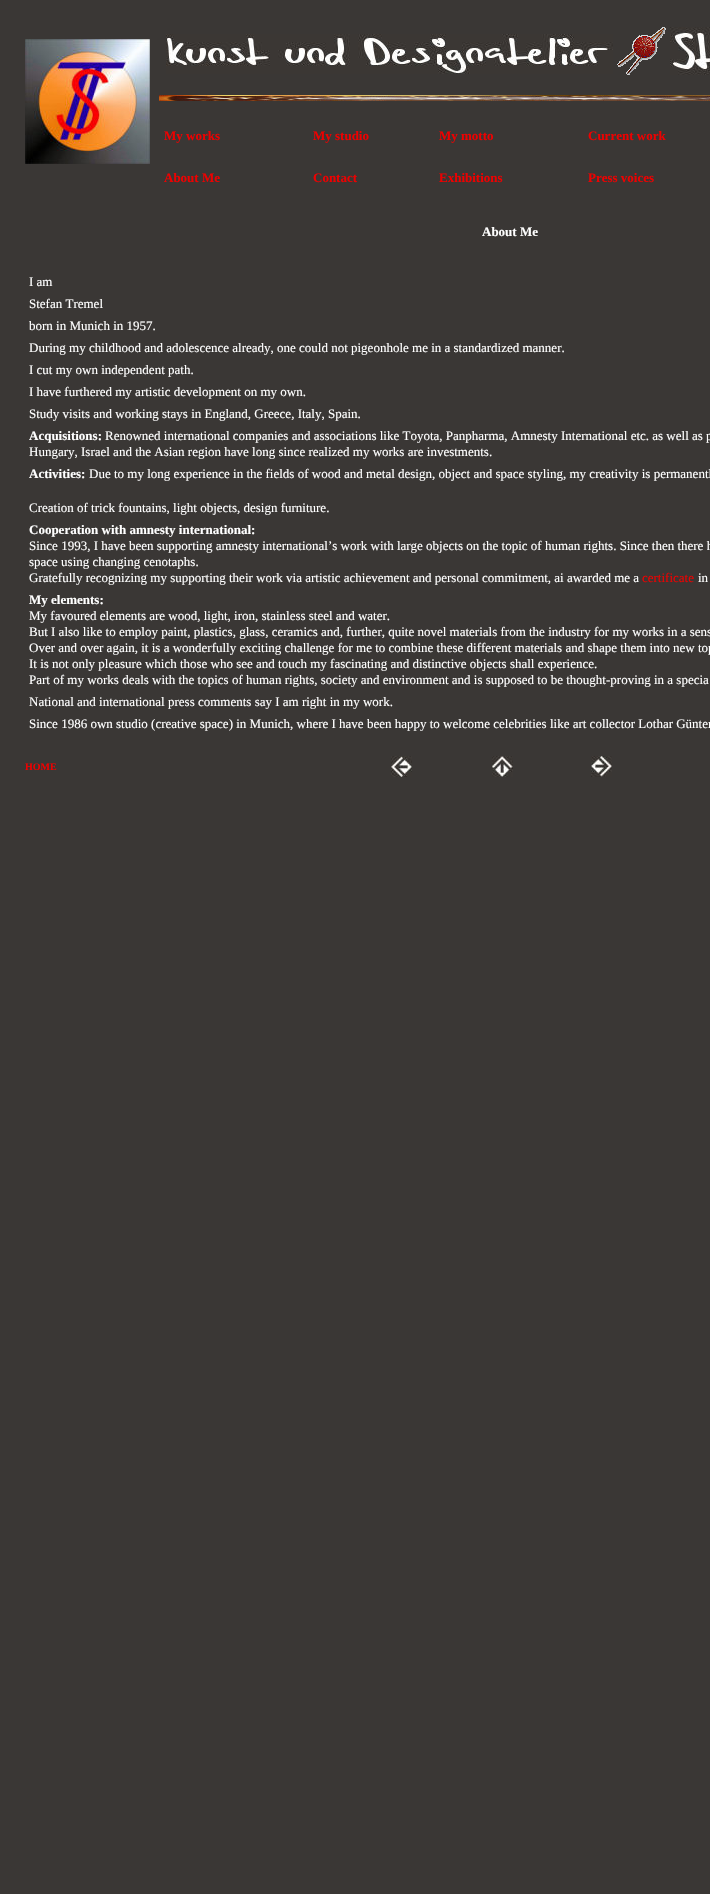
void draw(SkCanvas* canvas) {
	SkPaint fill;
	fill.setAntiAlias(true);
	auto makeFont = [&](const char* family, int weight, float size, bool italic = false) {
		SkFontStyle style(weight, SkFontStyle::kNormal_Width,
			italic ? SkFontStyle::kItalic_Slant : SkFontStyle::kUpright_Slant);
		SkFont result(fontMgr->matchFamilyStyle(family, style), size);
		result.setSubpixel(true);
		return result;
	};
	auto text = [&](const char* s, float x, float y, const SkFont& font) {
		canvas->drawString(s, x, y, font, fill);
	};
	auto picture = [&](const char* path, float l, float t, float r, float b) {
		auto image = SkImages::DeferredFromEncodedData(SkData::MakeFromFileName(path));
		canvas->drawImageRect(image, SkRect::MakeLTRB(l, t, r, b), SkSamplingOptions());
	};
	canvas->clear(0xFF3A3735);
	picture("image0.png", 25, 39, 150, 164);
	picture("image1.png", 166, 34, 613, 74);
	picture("image2.png", 617, 27, 666, 75);
	picture("image3.png", 670, 27, 710, 75);
	picture("image4.png", 159, 95, 710, 101);
	picture("image5.png", 391, 756, 412, 777);
	picture("image6.png", 492, 756, 513, 777);
	picture("image7.png", 591, 756, 612, 777);
	auto font1 = makeFont("Liberation Serif", 700, 13);
	fill.setColor(0xFFEE0000);
	text("My works", 164, 140, font1);
	text("My studio", 313, 140, font1);
	text("My motto", 439, 140, font1);
	text("Current work", 588, 140, font1);
	text("About Me", 164, 182, font1);
	text("Contact", 313, 182, font1);
	text("Exhibitions", 439, 182, font1);
	text("Press voices", 588, 182, font1);
	fill.setColor(0xFFFFFFFF);
	text("About Me", 482, 236, font1);
	auto font2 = makeFont("Liberation Serif", 400, 13);
	text("I am", 29, 286, font2);
	text("Stefan Tremel", 29, 308, font2);
	text("born in Munich in 1957.", 29, 330, font2);
	text("During my childhood and adolescence already, one could not pigeonhole me in a standardized manner.", 29, 352, font2);
	text("I cut my own independent path.", 29, 374, font2);
	text("I have furthered my artistic development on my own.", 29, 396, font2);
	text("Study visits and working stays in England, Greece, Italy, Spain.", 29, 418, font2);
	text("Acquisitions:", 29, 440, font1);
	text("Renowned international companies and associations like Toyota, Panpharma, Amnesty International etc. as well as p", 105, 440, font2);
	text("Hungary, Israel and the Asian region have long since realized my works are investments.", 29, 456, font2);
	text("Activities:", 29, 478, font1);
	text("Due to my long experience in the fields of wood and metal design, object and space styling, my creativity is permanentl", 89, 478, font2);
	text("Creation of trick fountains, light objects, design furniture.", 29, 512, font2);
	text("Cooperation with amnesty international:", 29, 534, font1);
	text("Since 1993, I have been supporting amnesty international’s work with large objects on the topic of human rights. Since then there h", 29, 550, font2);
	text("space using changing cenotaphs.", 29, 566, font2);
	text("Gratefully recognizing my supporting their work via artistic achievement and personal commitment, ai awarded me a", 29, 582, font2);
	fill.setColor(0xFFEE0000);
	text("certificate", 642, 582, font2);
	fill.setColor(0xFFFFFFFF);
	text("in", 698, 582, font2);
	text("My elements:", 29, 604, font1);
	text("My favoured elements are wood, light, iron, stainless steel and water.", 29, 620, font2);
	text("But I also like to employ paint, plastics, glass, ceramics and, further, quite novel materials from the industry for my works in a sens", 29, 636, font2);
	text("Over and over again, it is a wonderfully exciting challenge for me to combine these different materials and shape them into new top", 29, 652, font2);
	text("It is not only pleasure which those who see and touch my fascinating and distinctive objects shall experience.", 29, 668, font2);
	text("Part of my works deals with the topics of human rights, society and environment and is supposed to be thought-proving in a specia", 29, 684, font2);
	text("National and international press comments say I am right in my work.", 29, 706, font2);
	text("Since 1986 own studio (creative space) in Munich, where I have been happy to welcome celebrities like art collector Lothar Günter", 29, 728, font2);
	auto font3 = makeFont("Liberation Serif", 700, 10);
	fill.setColor(0xFFEE0000);
	text("HOME", 25, 770, font3);
}
